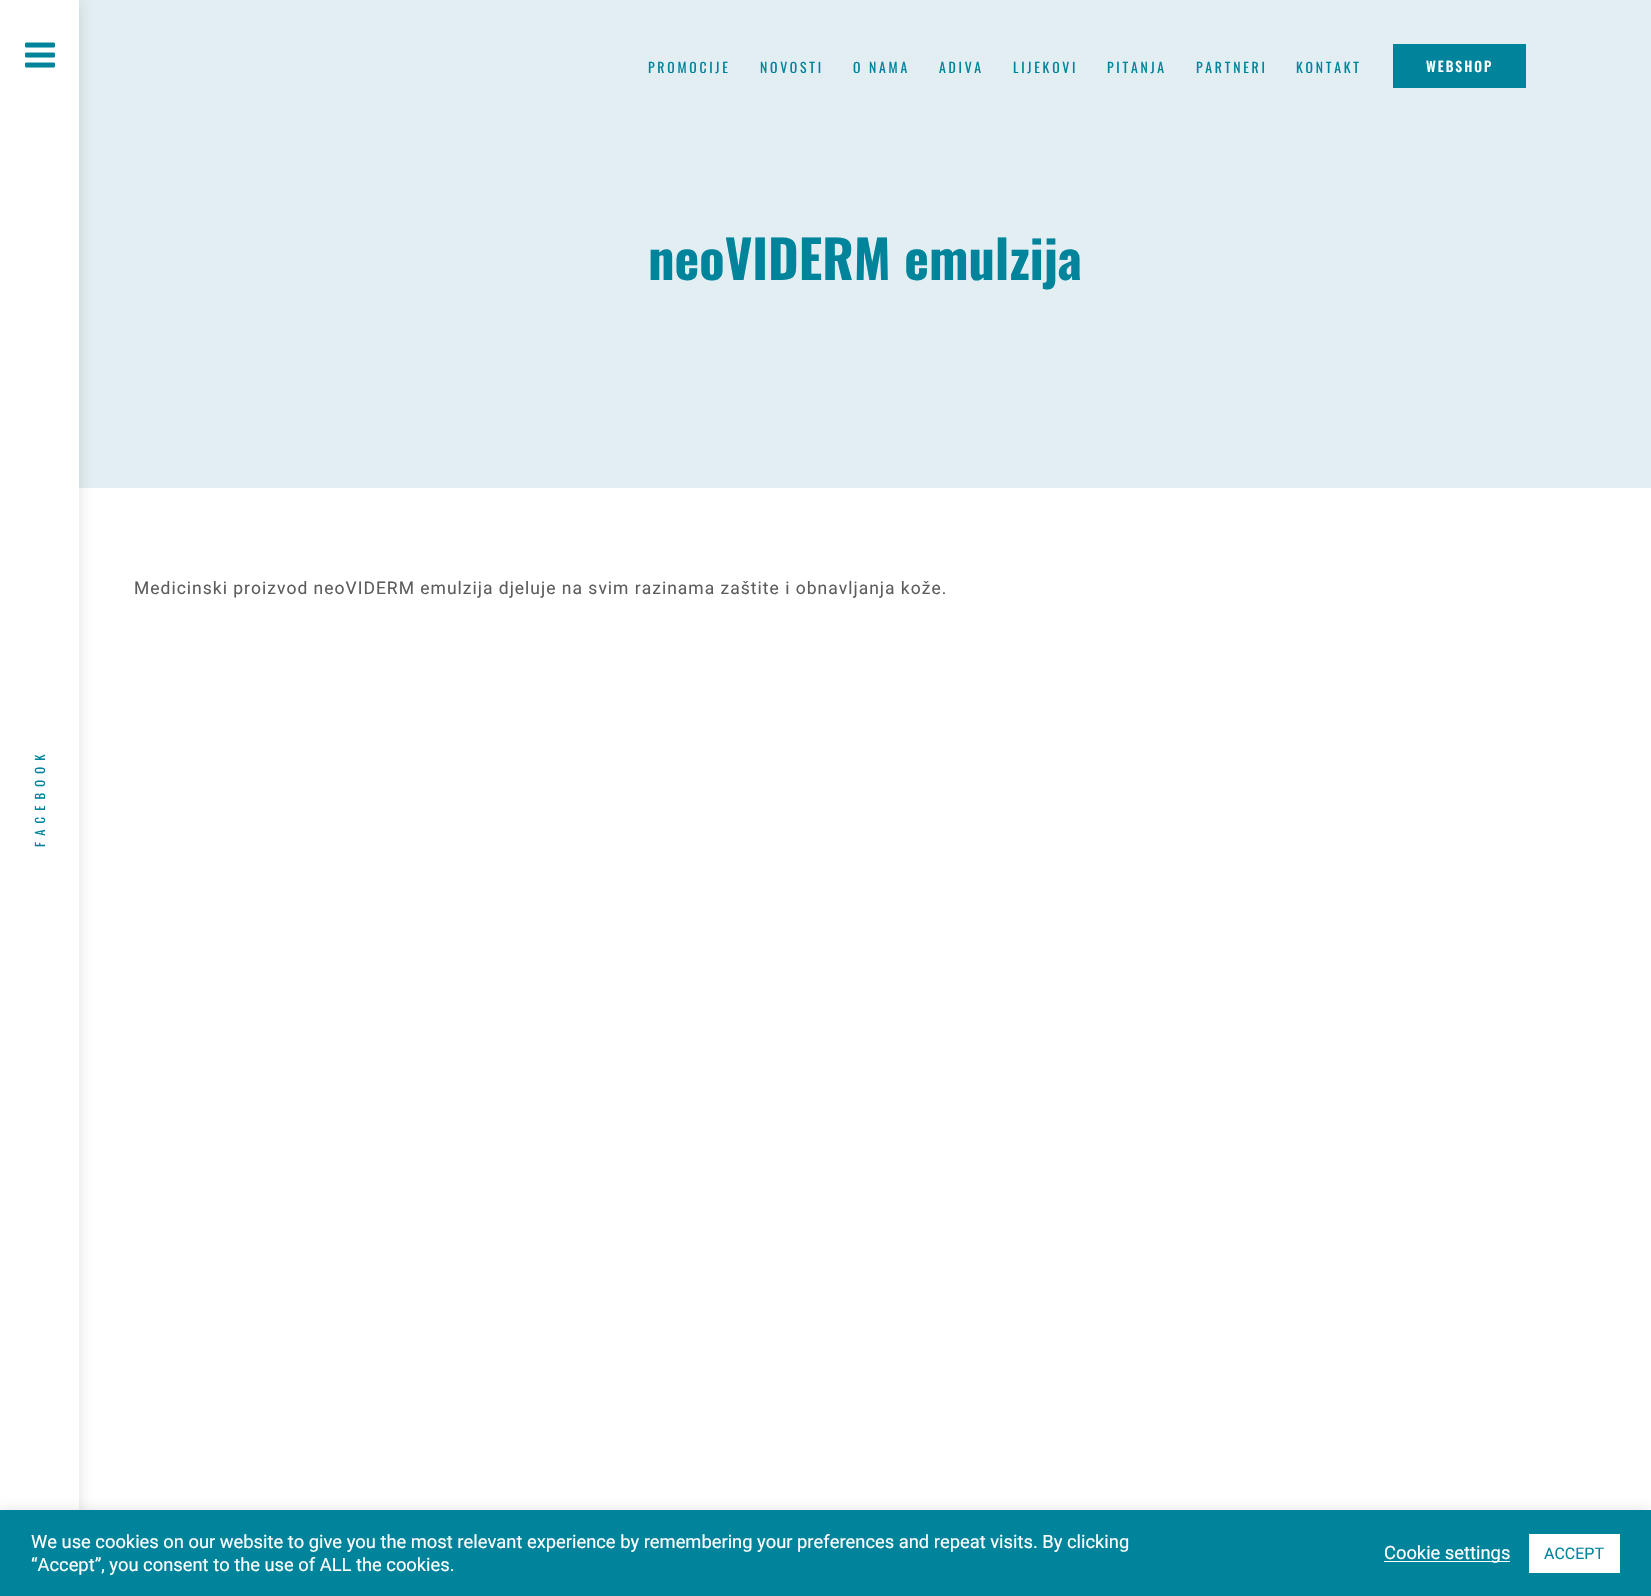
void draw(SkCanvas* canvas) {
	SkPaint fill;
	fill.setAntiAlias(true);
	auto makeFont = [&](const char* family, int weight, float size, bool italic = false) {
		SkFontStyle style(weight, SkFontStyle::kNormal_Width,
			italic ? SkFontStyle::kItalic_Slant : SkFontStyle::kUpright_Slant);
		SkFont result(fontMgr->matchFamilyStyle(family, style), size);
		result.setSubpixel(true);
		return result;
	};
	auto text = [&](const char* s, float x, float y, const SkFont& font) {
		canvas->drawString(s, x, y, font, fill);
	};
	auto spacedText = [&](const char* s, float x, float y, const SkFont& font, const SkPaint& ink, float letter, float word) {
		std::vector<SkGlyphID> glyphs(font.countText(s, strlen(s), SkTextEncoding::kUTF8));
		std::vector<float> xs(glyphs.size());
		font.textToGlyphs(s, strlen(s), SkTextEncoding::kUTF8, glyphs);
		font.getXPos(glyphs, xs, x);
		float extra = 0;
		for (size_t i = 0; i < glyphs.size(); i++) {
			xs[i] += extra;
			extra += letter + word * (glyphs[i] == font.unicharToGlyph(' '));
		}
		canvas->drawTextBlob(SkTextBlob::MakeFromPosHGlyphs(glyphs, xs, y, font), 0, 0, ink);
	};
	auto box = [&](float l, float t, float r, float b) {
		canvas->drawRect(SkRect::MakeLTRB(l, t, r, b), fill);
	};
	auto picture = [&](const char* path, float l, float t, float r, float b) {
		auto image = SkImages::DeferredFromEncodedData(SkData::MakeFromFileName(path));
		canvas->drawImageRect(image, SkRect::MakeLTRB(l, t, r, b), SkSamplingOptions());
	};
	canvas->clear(0xFFFFFFFF);
	fill.setColor(0xFFE3EEF2);
	box(79, 0, 1651, 488);
	fill.setColor(0x21101011);
	fill.setMaskFilter(SkMaskFilter::MakeBlur(kNormal_SkBlurStyle, 7.5f));
	canvas->drawRect(SkRect::MakeLTRB(0, 0, 79, 1596), fill);
	fill.setMaskFilter(nullptr);
	fill.setColor(0xFFFFFFFF);
	box(0, 0, 79, 1510);
	picture("image0.png", 25, 42, 55, 68);
	fill.setColor(0xFF00849B);
	box(1393, 44, 1526, 88);
	fill.setColor(0x4DACABAB);
	fill.setMaskFilter(SkMaskFilter::MakeBlur(kNormal_SkBlurStyle, 6));
	canvas->drawRect(SkRect::MakeLTRB(0, 1509, 1651, 1595), fill);
	fill.setMaskFilter(nullptr);
	fill.setColor(0xFF00849B);
	box(0, 1510, 1651, 1596);
	fill.setColor(0xFFFFFFFF);
	box(1384, 1561, 1510, 1562);
	box(1529, 1534, 1620, 1573);
	auto font1 = makeFont("Oswald", 400, 13.75f);
	fill.setColor(0xFF00849B);
	spacedText("PROMOCIJE", 648, 73, font1, fill, 2.75f, 0);
	spacedText("NOVOSTI", 760, 73, font1, fill, 2.75f, 0);
	spacedText("O NAMA", 853, 73, font1, fill, 2.75f, 0);
	spacedText("ADIVA", 939, 73, font1, fill, 2.75f, 0);
	spacedText("LIJEKOVI", 1013, 73, font1, fill, 2.75f, 0);
	spacedText("PITANJA", 1107, 73, font1, fill, 2.75f, 0);
	spacedText("PARTNERI", 1196, 73, font1, fill, 2.75f, 0);
	spacedText("KONTAKT", 1296, 73, font1, fill, 2.75f, 0);
	auto font2 = makeFont("Oswald", 500, 13.75f);
	fill.setColor(0xFFFFFFFF);
	spacedText("WEBSHOP", 1426, 72, font2, fill, 2, 0);
	auto font3 = makeFont("Oswald", 700, 52.5f);
	fill.setColor(0xFF00849B);
	text("neoVIDERM emulzija", 648, 280, font3);
	auto font4 = makeFont("Roboto", 400, 17.5f);
	fill.setColor(0xFF5D5D5D);
	spacedText("Medicinski proizvod neoVIDERM emulzija djeluje na svim razinama zaštite i obnavljanja kože.", 134, 594, font4, fill, 1, 0);
	auto font5 = makeFont("Oswald", 400, 12.5f);
	fill.setColor(0xFF00849B);
	canvas->save();
	canvas->rotate(-90, 45, 847);
	spacedText("FACEBOOK", 45, 847, font5, fill, 6.25f, 0);
	canvas->restore();
	auto font6 = makeFont("Roboto", 400, 18.33f);
	fill.setColor(0xFFFFFFFF);
	text("We use cookies on our website to give you the most relevant experience by remembering your preferences and repeat visits. By clicking", 31, 1548, font6);
	text("“Accept”, you consent to the use of ALL the cookies.", 31, 1571, font6);
	text("Cookie settings", 1384, 1559, font6);
	auto font7 = makeFont("Roboto", 400, 16);
	fill.setColor(0xFF00849B);
	text("ACCEPT", 1544, 1559, font7);
}
